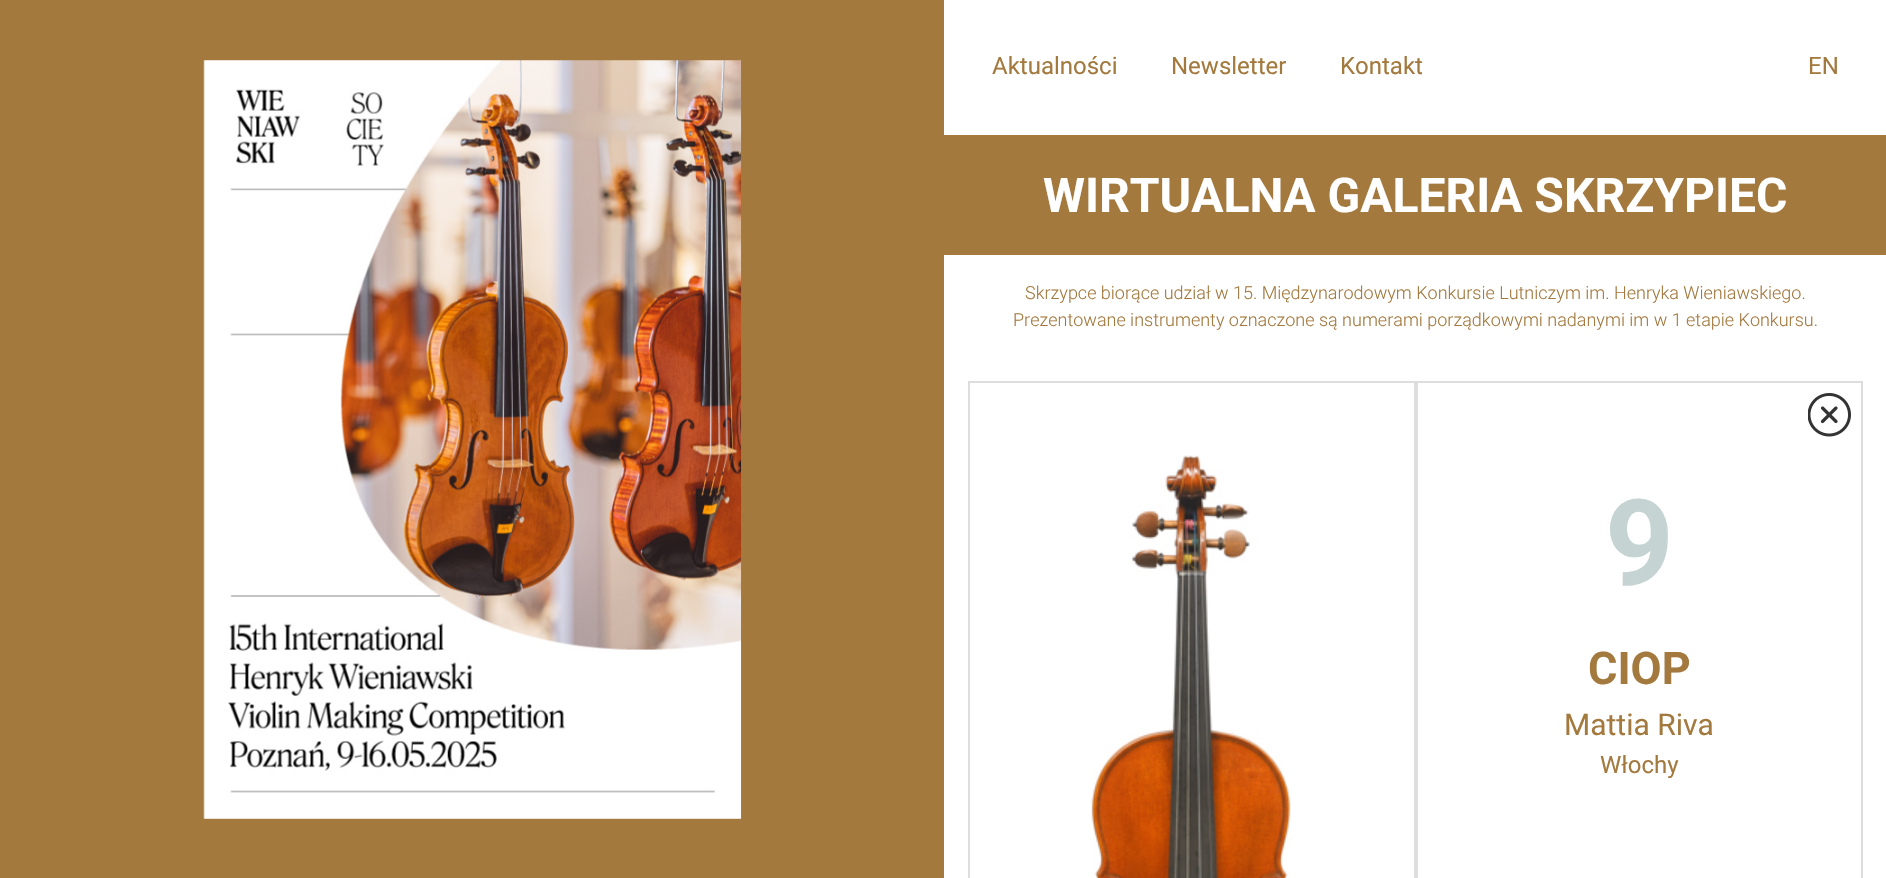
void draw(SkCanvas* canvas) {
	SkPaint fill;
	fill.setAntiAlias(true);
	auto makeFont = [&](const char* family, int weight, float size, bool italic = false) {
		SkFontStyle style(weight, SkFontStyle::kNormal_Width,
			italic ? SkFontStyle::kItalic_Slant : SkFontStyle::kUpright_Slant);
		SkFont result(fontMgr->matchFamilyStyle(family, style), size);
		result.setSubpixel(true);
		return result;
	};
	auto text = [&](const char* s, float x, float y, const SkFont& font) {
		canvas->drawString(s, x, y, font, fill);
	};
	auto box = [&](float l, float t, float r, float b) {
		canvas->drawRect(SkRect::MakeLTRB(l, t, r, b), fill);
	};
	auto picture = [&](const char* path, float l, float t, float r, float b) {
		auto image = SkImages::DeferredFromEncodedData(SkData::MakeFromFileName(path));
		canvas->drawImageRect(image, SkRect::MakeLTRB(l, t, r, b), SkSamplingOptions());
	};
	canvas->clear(0xFFFFFFFF);
	fill.setColor(0xFFA3793E);
	box(60, 60, 884, 819);
	picture("image0.png", 203, 60, 742, 819);
	fill.setStyle(SkPaint::kStroke_Style);
	fill.setStrokeWidth(60);
	canvas->drawRect(SkRect::MakeLTRB(30, 30, 914, 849), fill);
	fill.setStyle(SkPaint::kFill_Style);
	box(944, 135, 1886, 255);
	fill.setStyle(SkPaint::kStroke_Style);
	fill.setStrokeWidth(2);
	fill.setColor(0xFFDDDDDD);
	canvas->drawRect(SkRect::MakeLTRB(1417, 382, 1862, 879), fill);
	picture("image1.png", 1808, 393, 1851, 437);
	canvas->drawRect(SkRect::MakeLTRB(969, 382, 1415, 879), fill);
	picture("image2.png", 1091, 455, 1291, 878);
	auto font1 = makeFont("Roboto", 400, 24);
	fill.setStyle(SkPaint::kFill_Style);
	fill.setColor(0xFFA3793E);
	text("Aktualności", 992, 74, font1);
	text("Newsletter", 1171, 74, font1);
	text("Kontakt", 1340, 74, font1);
	text("EN", 1808, 74, font1);
	auto font2 = makeFont("Roboto", 700, 48);
	fill.setColor(0xFFFFFFFF);
	text("WIRTUALNA GALERIA SKRZYPIEC", 1043, 212, font2);
	auto font3 = makeFont("Roboto", 300, 18);
	fill.setColor(0xFFA3793E);
	text("Skrzypce biorące udział w 15. Międzynarodowym Konkursie Lutniczym im. Henryka Wieniawskiego.", 1025, 299, font3);
	text("Prezentowane instrumenty oznaczone są numerami porządkowymi nadanymi im w 1 etapie Konkursu.", 1013, 326, font3);
	auto font4 = makeFont("Roboto", 700, 120);
	fill.setColor(0xFFC5D3D3);
	text("9", 1605, 585, font4);
	auto font5 = makeFont("Roboto", 700, 45);
	fill.setColor(0xFFA3793E);
	text("CIOP", 1588, 684, font5);
	auto font6 = makeFont("Roboto", 400, 30);
	text("Mattia Riva", 1564, 735, font6);
	text("Włochy", 1600, 773, font1);
}
